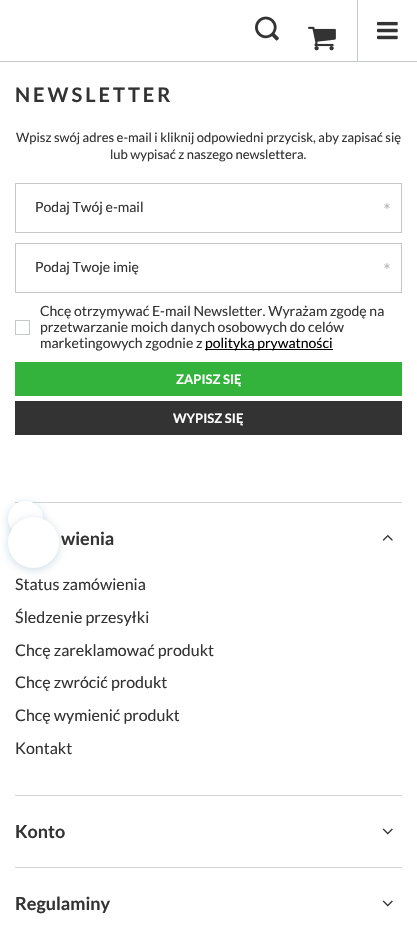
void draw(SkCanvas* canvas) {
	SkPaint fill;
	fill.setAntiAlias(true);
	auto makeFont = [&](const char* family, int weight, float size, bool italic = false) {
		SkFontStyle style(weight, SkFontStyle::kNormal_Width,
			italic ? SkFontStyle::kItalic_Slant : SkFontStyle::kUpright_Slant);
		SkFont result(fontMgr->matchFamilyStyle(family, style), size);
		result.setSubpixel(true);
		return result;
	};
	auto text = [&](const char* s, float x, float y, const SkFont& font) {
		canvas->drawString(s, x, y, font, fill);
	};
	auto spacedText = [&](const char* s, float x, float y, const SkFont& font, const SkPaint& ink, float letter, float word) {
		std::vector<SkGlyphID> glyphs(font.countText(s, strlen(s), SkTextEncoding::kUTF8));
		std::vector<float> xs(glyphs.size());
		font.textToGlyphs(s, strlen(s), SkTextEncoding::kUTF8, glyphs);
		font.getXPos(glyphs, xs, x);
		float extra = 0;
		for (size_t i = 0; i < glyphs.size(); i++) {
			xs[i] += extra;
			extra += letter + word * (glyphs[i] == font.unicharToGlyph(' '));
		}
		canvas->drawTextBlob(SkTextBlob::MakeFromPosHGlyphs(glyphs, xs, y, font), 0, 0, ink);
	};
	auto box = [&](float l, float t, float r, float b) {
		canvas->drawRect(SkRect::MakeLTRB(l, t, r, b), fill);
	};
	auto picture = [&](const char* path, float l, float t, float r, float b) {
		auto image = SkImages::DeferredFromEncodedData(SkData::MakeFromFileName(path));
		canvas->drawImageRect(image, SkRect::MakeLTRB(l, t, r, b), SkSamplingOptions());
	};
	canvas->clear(0xFFFFFFFF);
	fill.setColor(0xFFC4C7C8);
	box(0, 61, 417, 62);
	picture("image0.png", 255, 16, 279, 41);
	picture("image1.png", 308, 26, 336, 51);
	box(357, 0, 358, 61);
	picture("image2.png", 377, 21, 398, 40);
	fill.setStyle(SkPaint::kStroke_Style);
	fill.setStrokeWidth(1);
	canvas->drawRect(SkRect::MakeLTRB(15.5f, 183.5f, 401.5f, 232.5f), fill);
	canvas->drawRect(SkRect::MakeLTRB(15.5f, 243.5f, 401.5f, 292.5f), fill);
	canvas->drawRect(SkRect::MakeLTRB(15.5f, 320.5f, 29.5f, 334.5f), fill);
	fill.setStyle(SkPaint::kFill_Style);
	fill.setColor(0xFF000000);
	box(205, 349, 333, 350);
	fill.setColor(0xFF33B33B);
	box(15, 362, 402, 396);
	fill.setColor(0xFF333333);
	box(15, 401, 402, 435);
	fill.setColor(0xFFD1D5DB);
	box(15, 502, 402, 503);
	fill.setColor(0x330B5680);
	fill.setMaskFilter(SkMaskFilter::MakeBlur(kNormal_SkBlurStyle, 5));
	canvas->drawRoundRect(SkRect::MakeLTRB(8, 503, 43, 538), 17.5f, 17.5f, fill);
	fill.setMaskFilter(nullptr);
	fill.setColor(0xFFFFFFFF);
	canvas->drawCircle(25.5f, 518.5f, 17.5f, fill);
	fill.setColor(0x330B5680);
	fill.setMaskFilter(SkMaskFilter::MakeBlur(kNormal_SkBlurStyle, 5));
	canvas->drawRoundRect(SkRect::MakeLTRB(8, 519, 59, 570), 25.5f, 25.5f, fill);
	fill.setMaskFilter(nullptr);
	fill.setColor(0xFFFFFFFF);
	canvas->drawCircle(33.5f, 542.5f, 25.5f, fill);
	fill.setColor(0xFFD1D5DB);
	box(15, 795, 402, 796);
	picture("image3.png", 382, 534, 393, 541);
	box(15, 867, 402, 868);
	picture("image4.png", 382, 828, 393, 835);
	picture("image4.png", 382, 900, 393, 907);
	auto font1 = makeFont("Lato", 700, 20);
	fill.setColor(0xFF333333);
	spacedText("NEWSLETTER", 15, 102, font1, fill, 3, 0);
	auto font2 = makeFont("Lato", 400, 13);
	text("Wpisz swój adres e-mail i kliknij odpowiedni przycisk, aby zapisać się", 16, 142, font2);
	text("lub wypisać z naszego newslettera.", 110, 159, font2);
	auto font3 = makeFont("Lato", 400, 14);
	text("Podaj Twój e-mail", 35, 212, font3);
	auto font4 = makeFont("Lato", 300, 20);
	fill.setColor(0xFF999999);
	text("*", 383, 218, font4);
	fill.setColor(0xFF333333);
	text("Podaj Twoje imię", 35, 272, font3);
	fill.setColor(0xFF999999);
	text("*", 383, 278, font4);
	fill.setColor(0xFF333333);
	text("Chcę otrzymywać E-mail Newsletter. Wyrażam zgodę na", 40, 316, font3);
	text("przetwarzanie moich danych osobowych do celów", 40, 332, font3);
	text("marketingowych zgodnie z", 40, 348, font3);
	fill.setColor(0xFF000000);
	text("polityką prywatności", 205, 348, font3);
	auto font5 = makeFont("Lato", 700, 13);
	fill.setColor(0xFFFFFFFF);
	text("ZAPISZ SIĘ", 176, 384, font5);
	text("WYPISZ SIĘ", 173, 423, font5);
	auto font6 = makeFont("Lato", 700, 18);
	fill.setColor(0xFF333333);
	text("wienia", 61, 545, font6);
	auto font7 = makeFont("Lato", 400, 16);
	text("Status zamówienia", 15, 590, font7);
	text("Śledzenie przesyłki", 15, 623, font7);
	text("Chcę zareklamować produkt", 15, 656, font7);
	text("Chcę zwrócić produkt", 15, 688, font7);
	text("Chcę wymienić produkt", 15, 721, font7);
	text("Kontakt", 15, 754, font7);
	text("Konto", 15, 838, font6);
	text("Regulaminy", 15, 910, font6);
}
